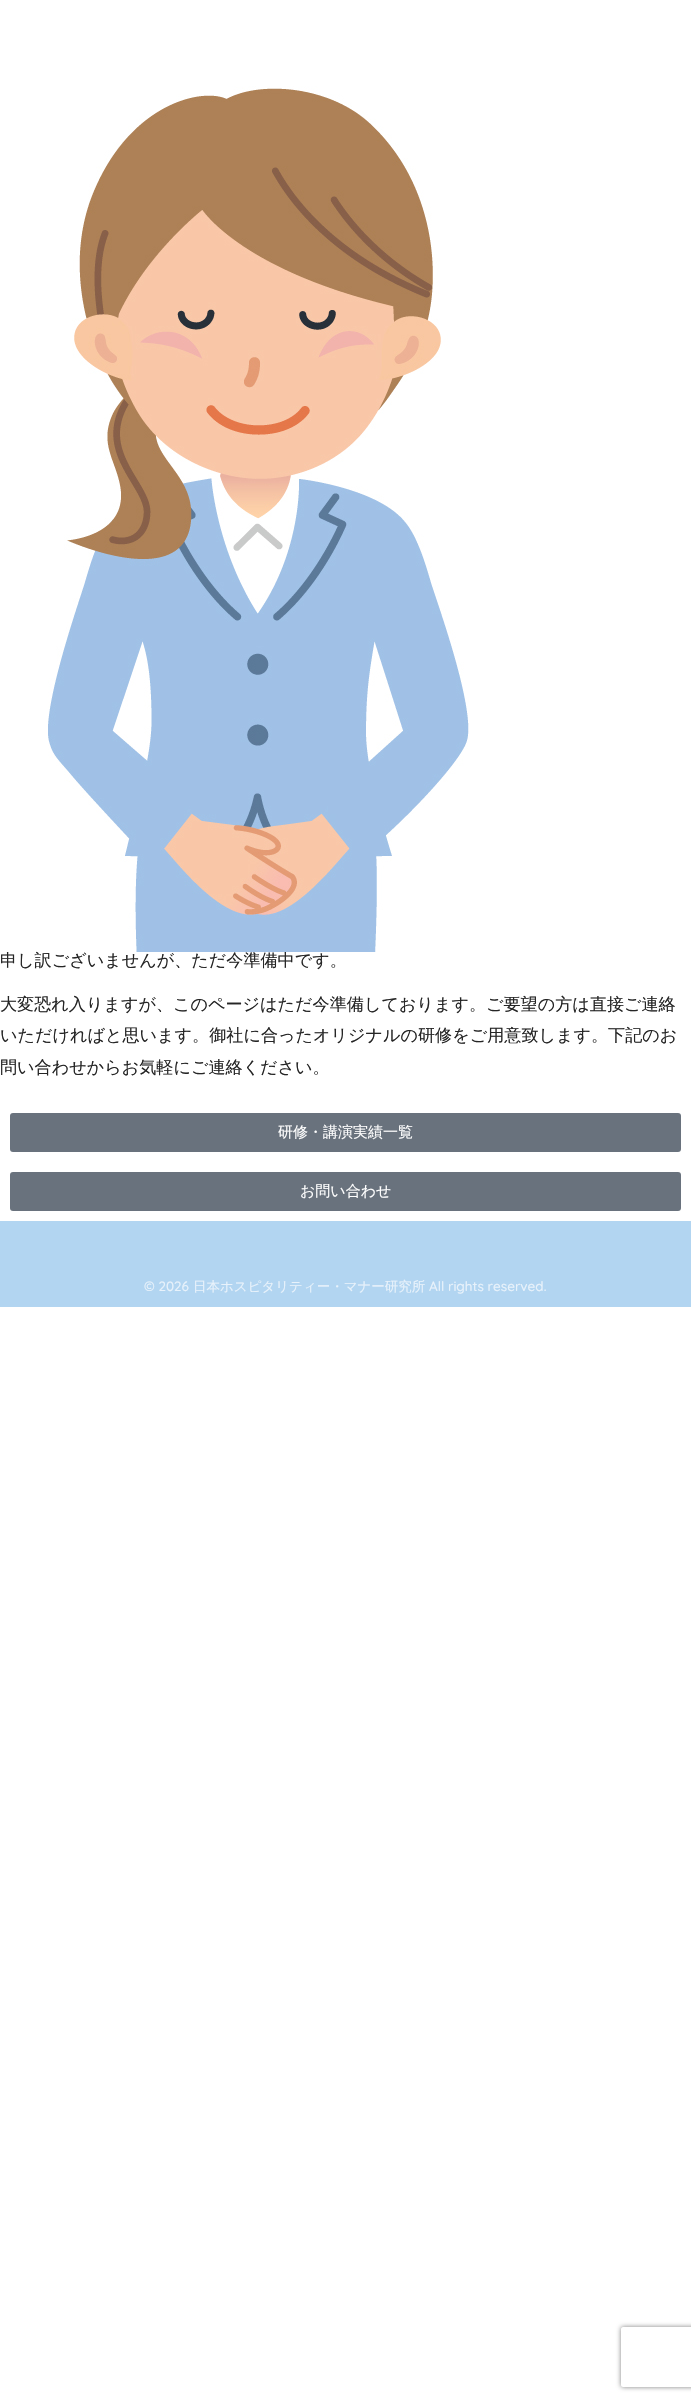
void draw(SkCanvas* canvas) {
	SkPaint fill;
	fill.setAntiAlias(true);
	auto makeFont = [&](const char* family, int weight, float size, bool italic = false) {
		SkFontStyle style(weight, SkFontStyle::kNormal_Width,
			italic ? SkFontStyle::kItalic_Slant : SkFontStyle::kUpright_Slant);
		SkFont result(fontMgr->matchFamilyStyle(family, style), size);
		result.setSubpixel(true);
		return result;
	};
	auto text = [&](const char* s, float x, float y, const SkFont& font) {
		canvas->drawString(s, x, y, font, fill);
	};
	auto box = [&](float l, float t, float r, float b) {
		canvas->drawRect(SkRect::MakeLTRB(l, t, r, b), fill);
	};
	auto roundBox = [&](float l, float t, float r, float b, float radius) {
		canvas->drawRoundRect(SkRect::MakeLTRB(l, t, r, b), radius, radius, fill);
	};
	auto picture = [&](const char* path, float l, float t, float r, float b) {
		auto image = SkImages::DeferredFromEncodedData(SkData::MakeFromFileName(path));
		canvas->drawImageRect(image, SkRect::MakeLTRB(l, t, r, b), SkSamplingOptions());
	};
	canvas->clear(0xFFFFFFFF);
	picture("image0.png", 48, 86, 469, 952);
	fill.setColor(0xFF69727D);
	roundBox(10, 1113, 681, 1152, 3);
	roundBox(10, 1172, 681, 1211, 3);
	fill.setColor(0xFFB2D5F1);
	box(0, 1221, 691, 1307);
	canvas->save();
	canvas->clipPath(SkPathBuilder(SkPathFillType::kEvenOdd).moveTo(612, 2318).lineTo(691, 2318).lineTo(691, 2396).lineTo(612, 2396).close().moveTo(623, 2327).lineTo(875, 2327).cubicTo(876, 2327, 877, 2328, 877, 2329).lineTo(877, 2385).cubicTo(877, 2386, 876, 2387, 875, 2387).lineTo(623, 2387).cubicTo(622, 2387, 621, 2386, 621, 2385).lineTo(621, 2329).cubicTo(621, 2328, 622, 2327, 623, 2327).close().detach(), true);
	fill.setColor(0xFF808080);
	fill.setMaskFilter(SkMaskFilter::MakeBlur(kNormal_SkBlurStyle, 2.5f));
	canvas->drawRoundRect(SkRect::MakeLTRB(621, 2327, 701, 2387), 2, 2, fill);
	fill.setMaskFilter(nullptr);
	canvas->restore();
	auto font1 = makeFont("WenQuanYi Zen Hei", 500, 17.1f);
	fill.setColor(0xFF252525);
	text("申し訳ございませんが、ただ今準備中です。", 0, 966, font1);
	text("大変恐れ入りますが、このページはただ今準備しております。ご要望の方は直接ご連絡", 0, 1010, font1);
	text("いただければと思います。御社に合ったオリジナルの研修をご用意致します。下記のお", 0, 1041, font1);
	text("問い合わせからお気軽にご連絡ください。", 0, 1073, font1);
	auto font2 = makeFont("WenQuanYi Zen Hei", 500, 15);
	fill.setColor(0xFFFFFFFF);
	text("研修・講演実績一覧", 278, 1137, font2);
	text("お問い合わせ", 300, 1196, font2);
	auto font3 = makeFont("Quicksand", 500, 13.5f);
	fill.setColor(0xFFE8F2FB);
	text("© 2026", 144, 1291, font3);
	auto font4 = makeFont("WenQuanYi Zen Hei", 500, 13.5f);
	text("日本ホスピタリティー・マナー研究所", 193, 1291, font4);
	text("All rights reserved.", 429, 1291, font3);
}
